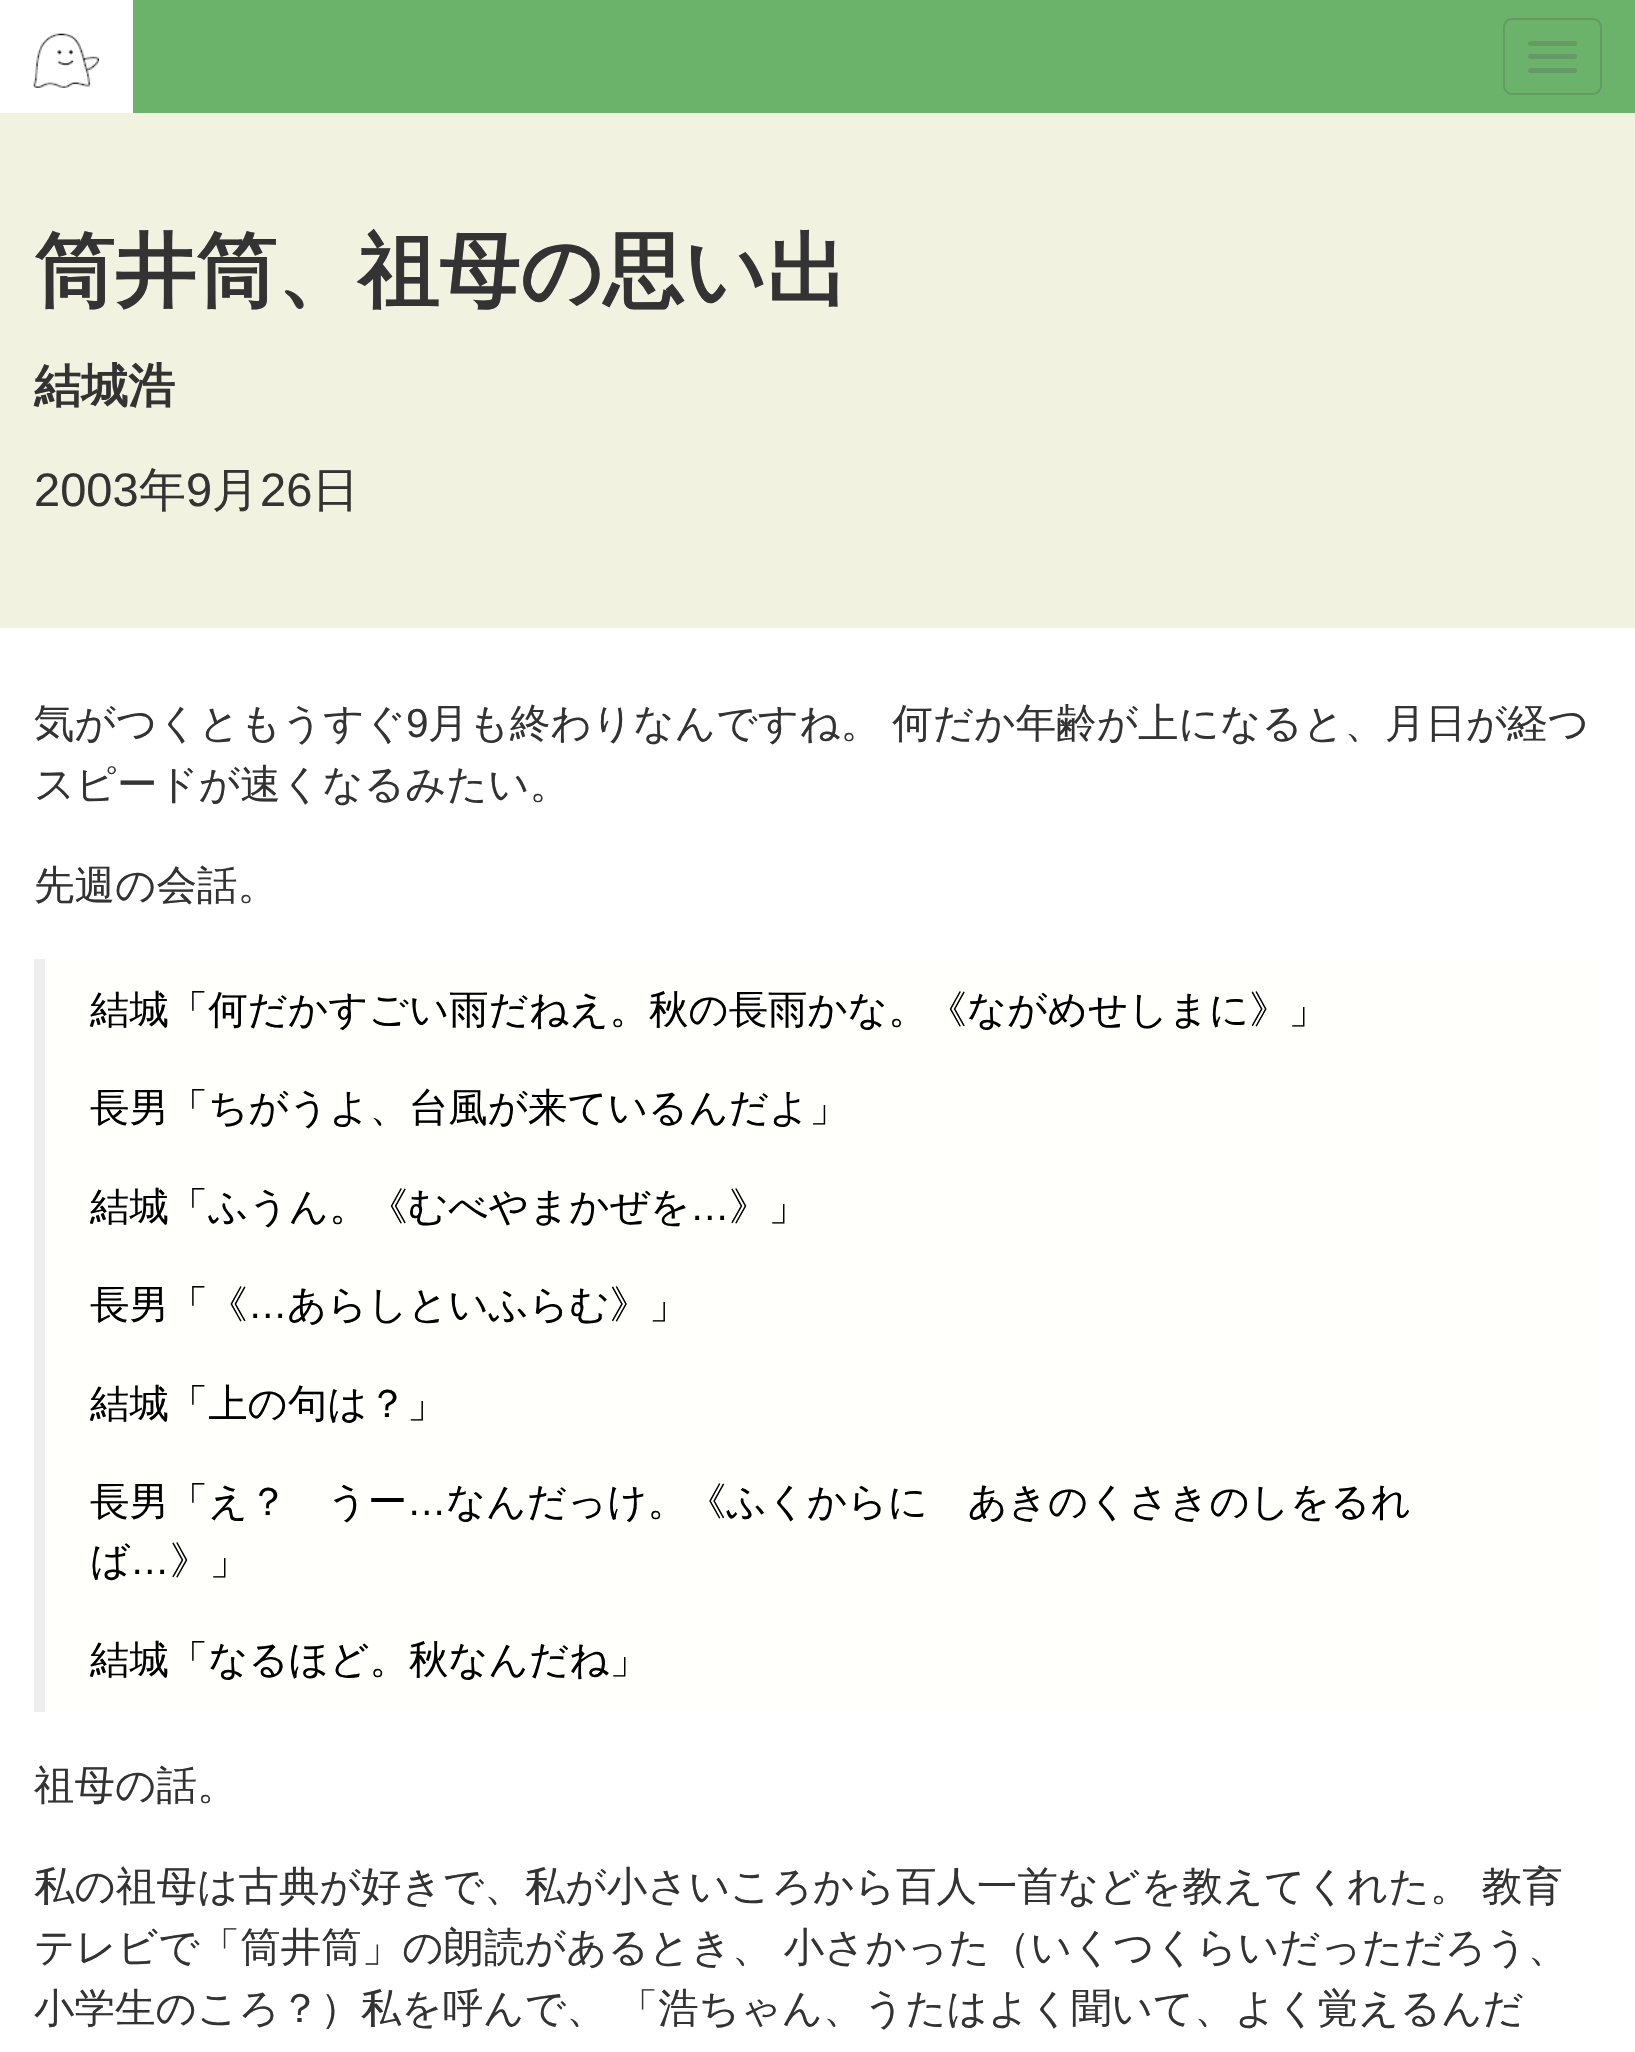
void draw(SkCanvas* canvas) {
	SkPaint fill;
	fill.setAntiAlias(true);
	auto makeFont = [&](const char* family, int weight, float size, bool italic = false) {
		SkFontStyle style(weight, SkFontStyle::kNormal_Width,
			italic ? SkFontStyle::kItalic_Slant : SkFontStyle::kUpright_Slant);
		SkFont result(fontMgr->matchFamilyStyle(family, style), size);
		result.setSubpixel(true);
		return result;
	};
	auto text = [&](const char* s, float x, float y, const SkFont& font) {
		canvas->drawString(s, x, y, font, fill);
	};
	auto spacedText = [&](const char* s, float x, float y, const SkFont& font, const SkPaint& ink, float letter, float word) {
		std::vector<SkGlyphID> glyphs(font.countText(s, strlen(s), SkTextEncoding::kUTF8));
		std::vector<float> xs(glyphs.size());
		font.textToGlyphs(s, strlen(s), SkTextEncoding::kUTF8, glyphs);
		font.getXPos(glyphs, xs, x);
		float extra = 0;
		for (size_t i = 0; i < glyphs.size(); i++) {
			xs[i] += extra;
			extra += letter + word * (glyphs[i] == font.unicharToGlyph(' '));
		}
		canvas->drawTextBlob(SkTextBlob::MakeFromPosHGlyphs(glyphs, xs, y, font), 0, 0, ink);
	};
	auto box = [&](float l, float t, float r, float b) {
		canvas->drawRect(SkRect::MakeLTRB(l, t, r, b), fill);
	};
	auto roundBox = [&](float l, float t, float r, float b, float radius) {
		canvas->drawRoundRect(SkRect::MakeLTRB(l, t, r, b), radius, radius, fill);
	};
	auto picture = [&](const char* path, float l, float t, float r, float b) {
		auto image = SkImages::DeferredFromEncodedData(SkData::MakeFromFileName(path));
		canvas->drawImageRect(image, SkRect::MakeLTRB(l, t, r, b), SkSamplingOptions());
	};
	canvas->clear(0xFFFFFFFF);
	fill.setColor(0xFF6BB36B);
	box(133, 0, 1635, 113);
	picture("image0.png", 33, 33, 99, 88);
	fill.setStyle(SkPaint::kStroke_Style);
	fill.setStrokeWidth(2);
	fill.setColor(0xFF669966);
	canvas->drawRoundRect(SkRect::MakeLTRB(1504, 19, 1601, 94), 8, 8, fill);
	fill.setStyle(SkPaint::kFill_Style);
	roundBox(1528, 41, 1577, 46, 2.5f);
	roundBox(1528, 54, 1577, 59, 2.5f);
	roundBox(1528, 68, 1577, 73, 2.5f);
	fill.setColor(0xFFF2F2E1);
	box(0, 113, 1635, 628);
	fill.setColor(0xFFFFFFFC);
	box(45, 959, 1602, 1712);
	fill.setColor(0xFFEEEEEE);
	box(34, 959, 45, 1712);
	auto font1 = makeFont("WenQuanYi Zen Hei", 700, 81);
	fill.setColor(0xFF333333);
	text("筒井筒、祖母の思い出", 34, 299, font1);
	auto font2 = makeFont("WenQuanYi Zen Hei", 700, 47);
	text("結城浩", 34, 402, font2);
	auto font3 = makeFont("Liberation Sans", 400, 47);
	text("2003", 34, 506, font3);
	auto font4 = makeFont("WenQuanYi Zen Hei", 500, 47);
	text("年", 139, 506, font4);
	text("9", 186, 506, font3);
	text("月", 212, 506, font4);
	text("26", 260, 506, font3);
	text("日", 312, 506, font4);
	auto font5 = makeFont("WenQuanYi Zen Hei", 500, 40.5f);
	text("気がつくともうすぐ", 34, 737, font5);
	auto font6 = makeFont("Liberation Sans", 400, 40.5f);
	text("9", 406, 737, font6);
	spacedText("月も終わりなんですね。 何だか年齢が上になると、月日が経つ", 428, 737, font5, fill, 0, -1);
	text("スピードが速くなるみたい。", 34, 798, font5);
	text("先週の会話。", 34, 899, font5);
	auto font7 = makeFont("WenQuanYi Zen Hei", 500, 39.4f);
	fill.setColor(0xFF000000);
	text("結城「何だかすごい雨だねえ。秋の長雨かな。《ながめせしまに》」", 90, 1023, font7);
	text("長男「ちがうよ、台風が来ているんだよ」", 90, 1121, font7);
	text("結城「ふうん。《むべやまかぜを", 90, 1220, font7);
	auto font8 = makeFont("Liberation Sans", 400, 39.4f);
	text("…", 690, 1220, font8);
	text("》」", 729, 1220, font7);
	text("長男「《", 90, 1318, font7);
	text("…", 248, 1318, font8);
	text("あらしといふらむ》」", 287, 1318, font7);
	text("結城「上の句は？」", 90, 1417, font7);
	text("長男「え？　うー", 90, 1515, font7);
	text("…", 407, 1515, font8);
	text("なんだっけ。《ふくからに　あきのくさきのしをるれ", 446, 1515, font7);
	text("ば", 90, 1574, font7);
	text("…", 130, 1574, font8);
	text("》」", 170, 1574, font7);
	text("結城「なるほど。秋なんだね」", 90, 1673, font7);
	fill.setColor(0xFF333333);
	text("祖母の話。", 34, 1799, font5);
	spacedText("私の祖母は古典が好きで、私が小さいころから百人一首などを教えてくれた。 教育", 34, 1900, font5, fill, 0, -1);
	spacedText("テレビで「筒井筒」の朗読があるとき、 小さかった（いくつくらいだっただろう、", 34, 1961, font5, fill, 0, -1);
	spacedText("小学生のころ？）私を呼んで、 「浩ちゃん、うたはよく聞いて、よく覚えるんだ", 34, 2022, font5, fill, 0, -1);
}
